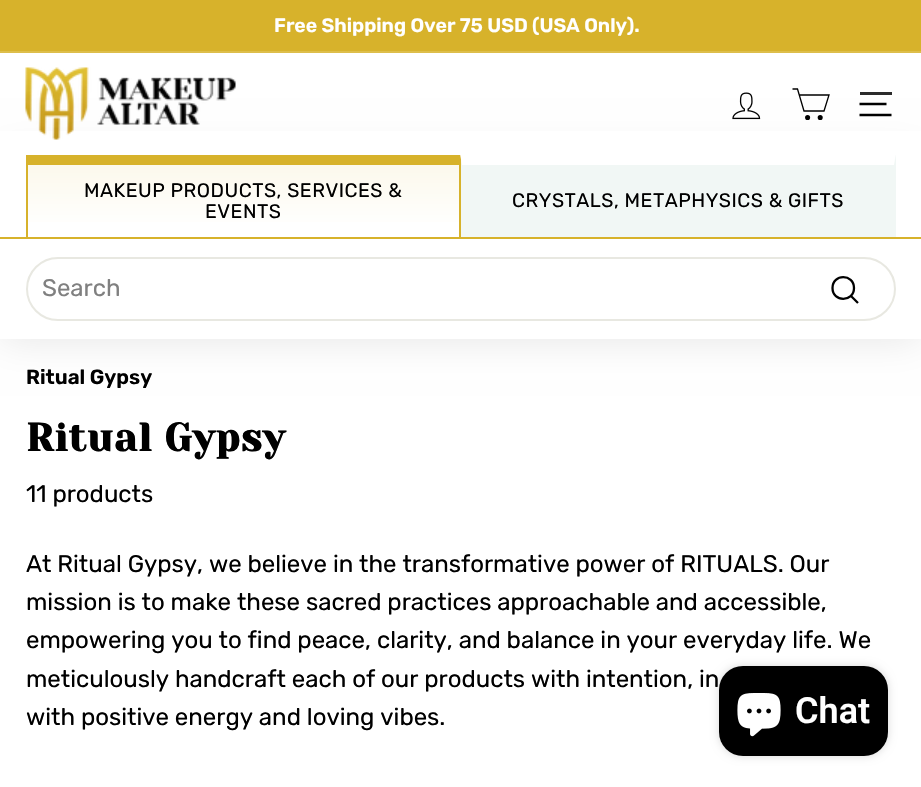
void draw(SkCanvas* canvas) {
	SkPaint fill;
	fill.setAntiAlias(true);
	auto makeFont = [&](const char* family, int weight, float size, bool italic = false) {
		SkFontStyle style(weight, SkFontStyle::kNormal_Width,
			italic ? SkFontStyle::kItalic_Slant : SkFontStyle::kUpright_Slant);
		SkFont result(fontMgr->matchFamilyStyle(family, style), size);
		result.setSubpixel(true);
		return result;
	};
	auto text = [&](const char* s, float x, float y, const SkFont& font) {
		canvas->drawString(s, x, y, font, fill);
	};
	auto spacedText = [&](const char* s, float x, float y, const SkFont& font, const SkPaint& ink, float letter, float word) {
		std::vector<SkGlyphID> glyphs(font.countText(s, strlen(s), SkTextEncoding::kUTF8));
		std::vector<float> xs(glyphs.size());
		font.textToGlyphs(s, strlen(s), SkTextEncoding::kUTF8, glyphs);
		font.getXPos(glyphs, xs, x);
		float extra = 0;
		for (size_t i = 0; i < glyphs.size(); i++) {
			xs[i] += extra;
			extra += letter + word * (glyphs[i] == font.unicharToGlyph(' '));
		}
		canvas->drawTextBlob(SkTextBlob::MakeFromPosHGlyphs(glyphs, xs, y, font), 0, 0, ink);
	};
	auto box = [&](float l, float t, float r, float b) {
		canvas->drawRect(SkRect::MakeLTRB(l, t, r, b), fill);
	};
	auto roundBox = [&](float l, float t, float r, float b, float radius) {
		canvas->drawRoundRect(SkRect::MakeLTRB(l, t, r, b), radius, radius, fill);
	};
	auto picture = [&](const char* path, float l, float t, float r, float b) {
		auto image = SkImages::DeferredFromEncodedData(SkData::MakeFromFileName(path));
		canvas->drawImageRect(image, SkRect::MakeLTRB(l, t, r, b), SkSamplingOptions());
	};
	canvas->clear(0xFFFFFFFF);
	fill.setColor(0xFFD7B22B);
	box(0, 0, 921, 51);
	fill.setColor(0xFFDDBE4B);
	box(0, 51, 921, 53);
	fill.setColor(0x1A000000);
	fill.setMaskFilter(SkMaskFilter::MakeBlur(kNormal_SkBlurStyle, 19));
	canvas->drawRect(SkRect::MakeLTRB(0, 155, 921, 339), fill);
	fill.setMaskFilter(nullptr);
	fill.setColor(0xFFFFFFFF);
	box(0, 155, 921, 339);
	fill.setColor(0xFFD7B22B);
	box(459, 155, 461, 239);
	fill.setColor(0xFFF1F7F5);
	box(461, 155, 896, 237);
	fill.setColor(0xFFFFFFFF);
	canvas->drawPath(SkPathBuilder().moveTo(460, 154).lineTo(896, 154).lineTo(894, 165).lineTo(462, 165).close().detach(), fill);
	box(0, 131, 921, 155);
	picture("image0.png", 25, 67, 236, 140);
	picture("image1.png", 732, 92, 761, 120);
	fill.setStyle(SkPaint::kStroke_Style);
	fill.setStrokeWidth(1.3f);
	fill.setColor(0xFF000000);
	canvas->drawPath(SkPathBuilder().moveTo(799.5f, 95).lineTo(829, 95).lineTo(824, 111).lineTo(804, 111).lineTo(797.5f, 89).lineTo(792.5f, 89).detach(), fill);
	fill.setStrokeWidth(2.5f);
	canvas->drawCircle(807.6f, 117.5f, 1.3f, fill);
	canvas->drawCircle(820.2f, 117.5f, 1.3f, fill);
	fill.setStyle(SkPaint::kFill_Style);
	fill.setColor(0xFF2B2B2B);
	box(860, 92, 892, 95);
	fill.setStyle(SkPaint::kStroke_Style);
	fill.setColor(0xFF000000);
	canvas->drawPath(SkPathBuilder().moveTo(859.5f, 104).lineTo(886.5f, 104).moveTo(859.5f, 115).lineTo(891.5f, 115).detach(), fill);
	fill.setStyle(SkPaint::kFill_Style);
	{
		const SkColor colors[] = {0xFFFFFFFF, 0xFFFCF9ED};
		const float stops[] = {0.1f, 0.85f};
		const SkPoint ends[] = {{243, 239}, {243, 155}};
		fill.setShader(SkGradientShader::MakeLinear(ends, colors, stops, 2, SkTileMode::kClamp));
		fill.setAlpha(255);
	}
	box(28, 165, 459, 222);
	fill.setShader(nullptr);
	fill.setColor(0xFFD7B22B);
	box(28, 155, 459, 165);
	box(26, 155, 28, 239);
	box(0, 237, 921, 239);
	fill.setStyle(SkPaint::kStroke_Style);
	fill.setStrokeWidth(2);
	fill.setColor(0xFFE8E8E1);
	canvas->drawRoundRect(SkRect::MakeLTRB(27, 258, 895, 320), 31, 31, fill);
	fill.setStrokeWidth(2.3f);
	fill.setColor(0xFF000000);
	canvas->drawPath(SkPathBuilder().moveTo(854, 288).cubicTo(854, 302.5f, 832.5f, 302.5f, 832.5f, 288).cubicTo(832.5f, 273.5f, 854, 273.5f, 854, 288).close().moveTo(858, 303).lineTo(851, 296).detach(), fill);
	fill.setStyle(SkPaint::kFill_Style);
	fill.setColor(0x26000000);
	fill.setMaskFilter(SkMaskFilter::MakeBlur(kNormal_SkBlurStyle, 4));
	canvas->drawRoundRect(SkRect::MakeLTRB(719, 666, 888, 756), 24, 24, fill);
	fill.setMaskFilter(nullptr);
	fill.setColor(0xFF000000);
	roundBox(719, 666, 888, 756, 24);
	picture("image2.png", 737, 693, 781, 737);
	auto font1 = makeFont("Rubik", 600, 19.5f);
	fill.setColor(0xFFFFFFFF);
	text("Free Shipping Over 75 USD (USA Only).", 274, 32, font1);
	auto font2 = makeFont("Rubik", 400, 19.5f);
	fill.setColor(0xFF000000);
	spacedText("MAKEUP PRODUCTS, SERVICES &", 84, 197, font2, fill, 0.5f, 0);
	spacedText("EVENTS", 205, 218, font2, fill, 0.5f, 0);
	spacedText("CRYSTALS, METAPHYSICS & GIFTS", 512, 207, font2, fill, 0.5f, 0);
	auto font3 = makeFont("Rubik", 400, 24);
	fill.setColor(0xFF808080);
	text("Search", 42, 296, font3);
	auto font4 = makeFont("Rubik", 600, 20.5f);
	fill.setColor(0xFF000000);
	text("Ritual Gypsy", 26, 384, font4);
	auto font5 = makeFont("Yeseva One", 700, 39);
	spacedText("Ritual Gypsy", 26, 451, font5, fill, 1, 0);
	text("11 products", 26, 502, font3);
	text("At Ritual Gypsy, we believe in the transformative power of RITUALS. Our", 26, 572, font3);
	text("mission is to make these sacred practices approachable and accessible,", 26, 610, font3);
	text("empowering you to find peace, clarity, and balance in your everyday life. We", 26, 648, font3);
	text("meticulously handcraft each of our products with intention, in", 26, 687, font3);
	text("with positive energy and loving vibes.", 26, 725, font3);
	auto font6 = makeFont("Roboto", 600, 36);
	fill.setColor(0xFFFFFFFF);
	text("Chat", 795, 723, font6);
}
